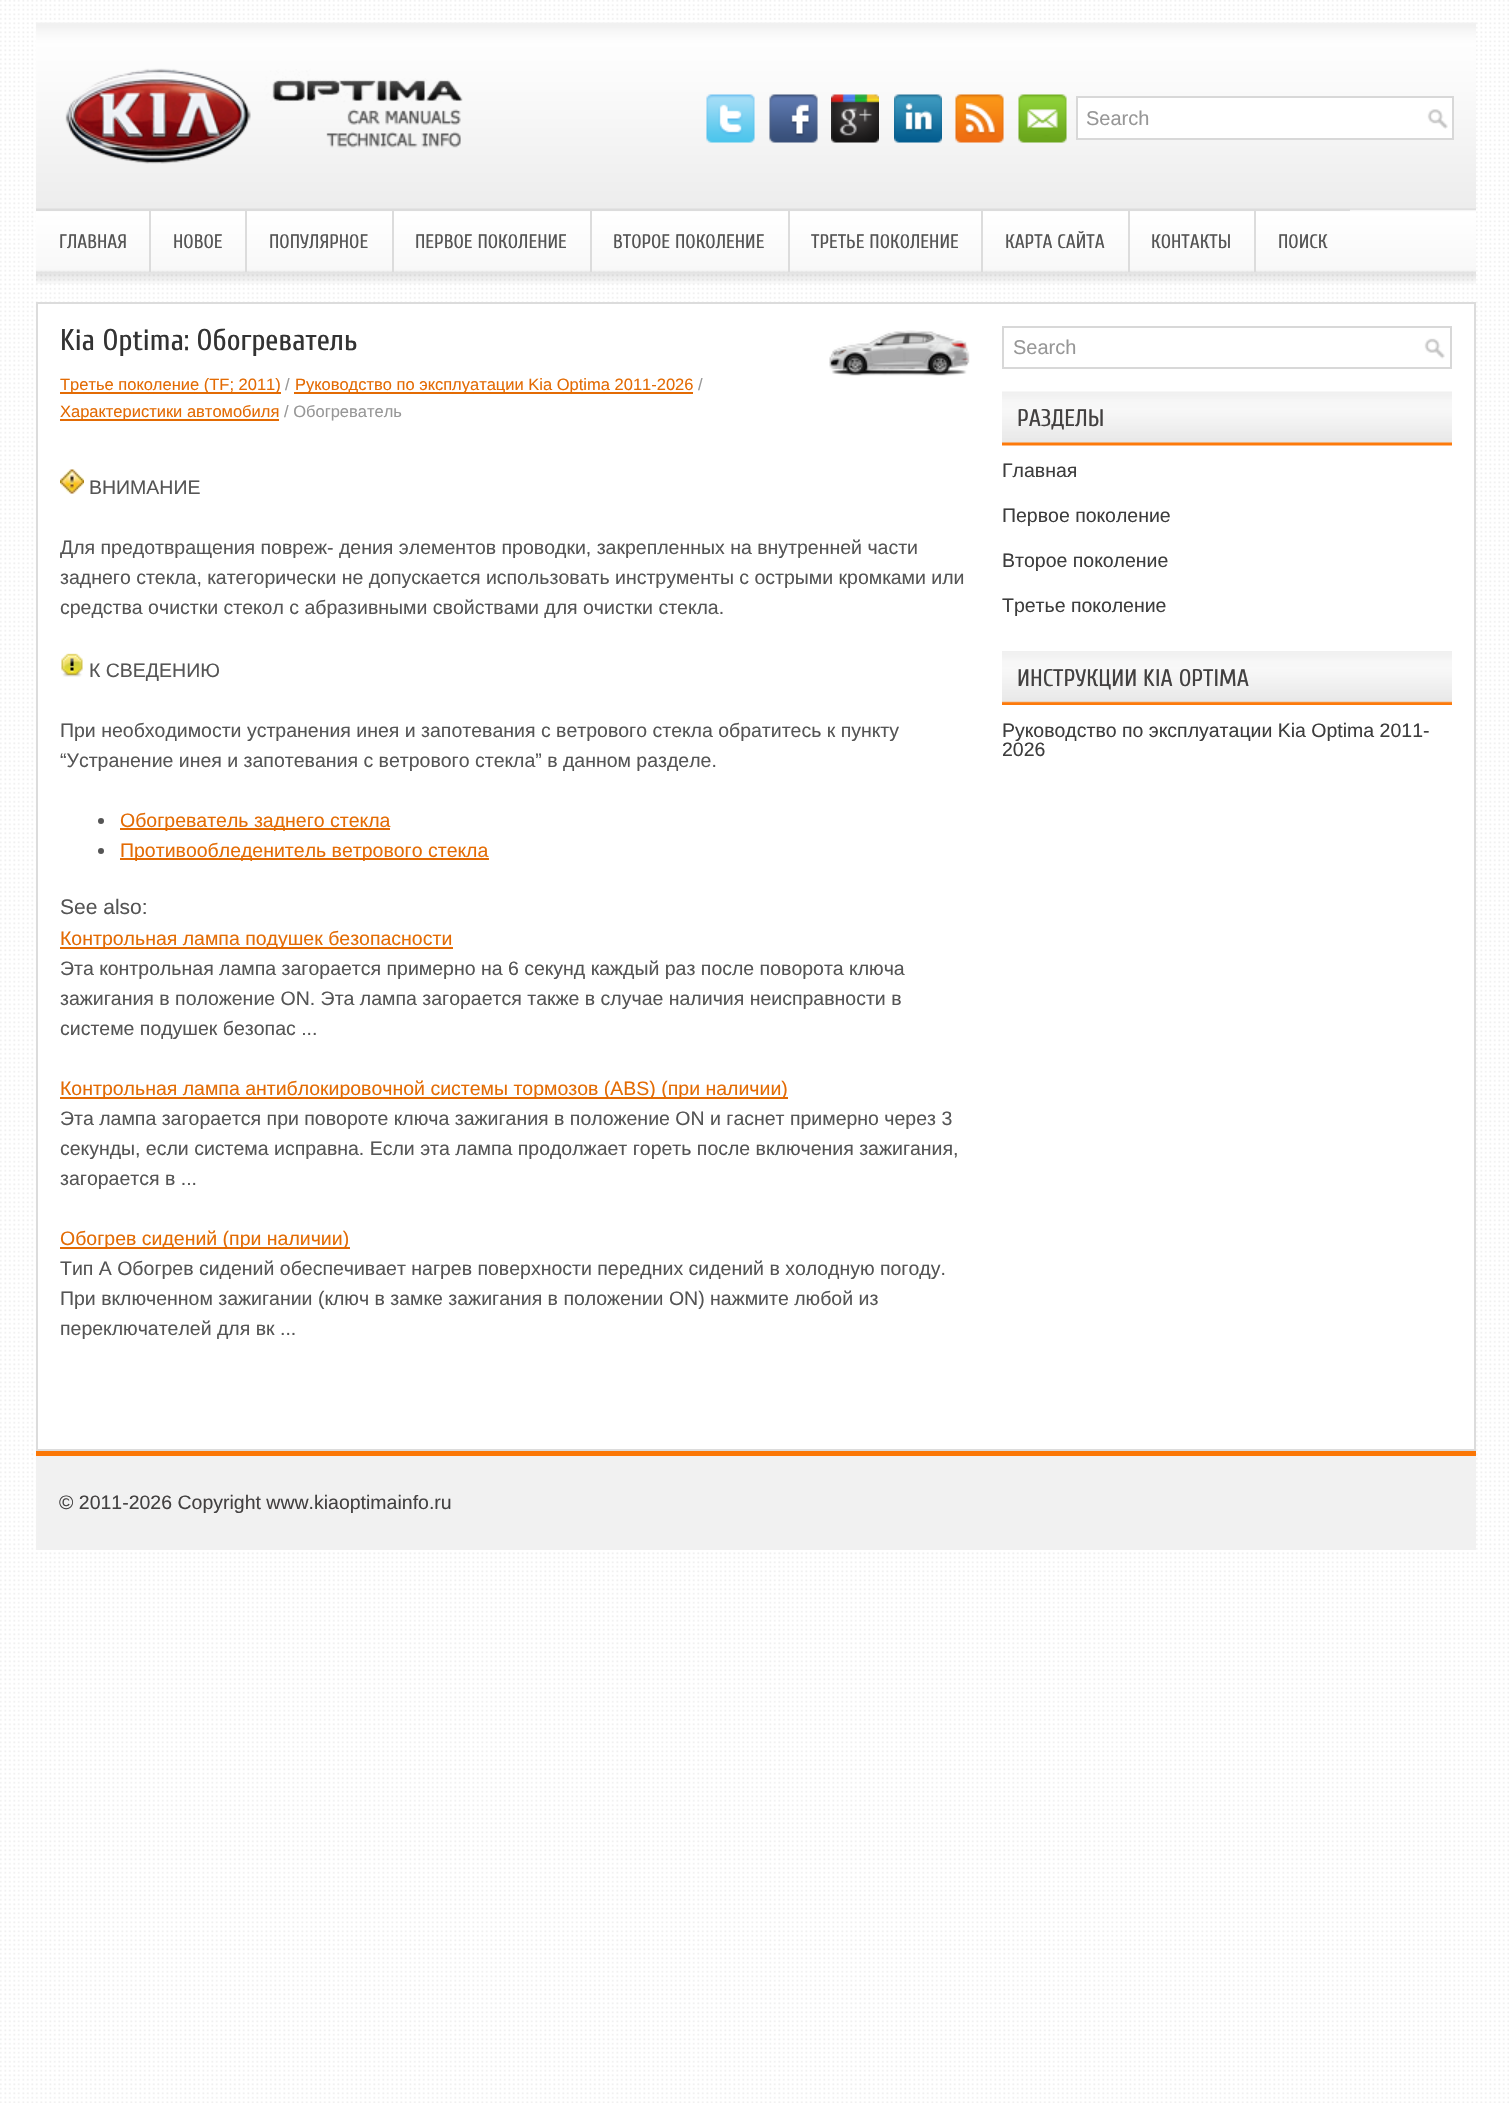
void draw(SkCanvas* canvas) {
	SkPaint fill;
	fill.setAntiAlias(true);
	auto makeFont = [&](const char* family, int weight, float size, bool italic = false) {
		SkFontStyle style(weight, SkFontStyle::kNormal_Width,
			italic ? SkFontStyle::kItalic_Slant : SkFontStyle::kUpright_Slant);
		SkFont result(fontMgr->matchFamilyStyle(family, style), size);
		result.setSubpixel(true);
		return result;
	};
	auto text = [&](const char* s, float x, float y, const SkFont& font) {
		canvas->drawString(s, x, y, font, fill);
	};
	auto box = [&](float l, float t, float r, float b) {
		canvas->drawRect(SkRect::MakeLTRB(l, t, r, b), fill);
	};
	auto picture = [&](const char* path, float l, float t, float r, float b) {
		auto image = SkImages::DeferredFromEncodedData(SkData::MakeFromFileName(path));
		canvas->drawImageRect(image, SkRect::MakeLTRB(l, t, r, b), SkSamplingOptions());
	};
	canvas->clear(0xFFFFFFFF);
	picture("image0.png", 0, 0, 1509, 2103);
	picture("image1.png", 36, 22, 1476, 210);
	picture("image2.png", 65, 68, 463, 164);
	picture("image3.png", 706, 94, 755, 143);
	picture("image4.png", 769, 94, 818, 143);
	picture("image5.png", 831, 94, 879, 143);
	picture("image6.png", 894, 94, 942, 143);
	picture("image7.png", 955, 94, 1004, 143);
	picture("image8.png", 1018, 94, 1067, 143);
	fill.setColor(0xFFFFFFFF);
	box(1078, 98, 1452, 138);
	picture("image9.png", 1427, 109, 1448, 129);
	fill.setStyle(SkPaint::kStroke_Style);
	fill.setStrokeWidth(2);
	fill.setColor(0xFFD8D8D8);
	canvas->drawRect(SkRect::MakeLTRB(1077, 97, 1453, 139), fill);
	picture("image10.png", 36, 208, 1476, 284);
	fill.setStyle(SkPaint::kFill_Style);
	fill.setColor(0xFFDCDCDC);
	box(36, 209, 149, 211);
	box(149, 209, 151, 272);
	box(150, 209, 245, 211);
	box(245, 209, 247, 272);
	box(246, 209, 392, 211);
	box(392, 209, 394, 272);
	box(393, 209, 590, 211);
	box(590, 209, 592, 272);
	box(591, 209, 788, 211);
	box(788, 209, 790, 272);
	box(789, 209, 981, 211);
	box(981, 209, 983, 272);
	box(983, 209, 1128, 211);
	box(1128, 209, 1130, 272);
	box(1130, 209, 1254, 211);
	box(1254, 209, 1256, 272);
	box(1256, 209, 1350, 211);
	fill.setColor(0xFFFFFFFF);
	box(40, 305, 1474, 1449);
	fill.setStyle(SkPaint::kStroke_Style);
	fill.setColor(0xFFDCDCDC);
	canvas->drawRect(SkRect::MakeLTRB(37, 303, 1475, 1450), fill);
	picture("image11.png", 829, 330, 970, 376);
	fill.setStyle(SkPaint::kFill_Style);
	fill.setColor(0xFFE36B04);
	box(60, 392, 281, 394);
	box(294, 392, 693, 394);
	box(60, 419, 279, 421);
	picture("image12.png", 60, 469, 84, 494);
	picture("image13.png", 61, 653, 83, 677);
	fill.setColor(0xFF555555);
	canvas->drawCircle(101, 821, 3, fill);
	fill.setColor(0xFFE36B04);
	box(120, 828, 390, 830);
	fill.setColor(0xFF555555);
	canvas->drawCircle(101, 851, 3, fill);
	fill.setColor(0xFFE36B04);
	box(120, 858, 489, 860);
	box(60, 947, 453, 949);
	box(60, 1097, 788, 1099);
	box(60, 1247, 350, 1249);
	picture("image14.png", 1424, 338, 1445, 359);
	fill.setStyle(SkPaint::kStroke_Style);
	fill.setColor(0xFFD8D8D8);
	canvas->drawRect(SkRect::MakeLTRB(1003, 327, 1451, 368), fill);
	picture("image15.png", 1002, 391, 1452, 446);
	picture("image16.png", 1002, 651, 1452, 705);
	fill.setStyle(SkPaint::kFill_Style);
	fill.setColor(0xFFF1F1F1);
	box(36, 1456, 1476, 1550);
	fill.setColor(0xFFFB7706);
	box(36, 1451, 1476, 1456);
	auto font1 = makeFont("Liberation Sans", 400, 20);
	fill.setColor(0xFF979797);
	text("Search", 1086, 125, font1);
	auto font2 = makeFont("Cuprum", 400, 19.5f);
	fill.setColor(0xFF555555);
	text("ГЛАВНАЯ", 59, 248, font2);
	text("НОВОЕ", 173, 248, font2);
	text("ПОПУЛЯРНОЕ", 269, 248, font2);
	text("ПЕРВОЕ ПОКОЛЕНИЕ", 415, 248, font2);
	text("ВТОРОЕ ПОКОЛЕНИЕ", 613, 248, font2);
	text("ТРЕТЬЕ ПОКОЛЕНИЕ", 811, 248, font2);
	text("КАРТА САЙТА", 1005, 248, font2);
	text("КОНТАКТЫ", 1151, 248, font2);
	text("ПОИСК", 1278, 248, font2);
	auto font3 = makeFont("Cuprum", 400, 30);
	fill.setColor(0xFF333333);
	text("Kia Optima: Обогреватель", 60, 350, font3);
	auto font4 = makeFont("Liberation Sans", 400, 16.5f);
	fill.setColor(0xFFE36B04);
	text("Третье поколение (TF; 2011)", 60, 390, font4);
	fill.setColor(0xFF979797);
	text("/", 285, 390, font4);
	fill.setColor(0xFFE36B04);
	text("Руководство по эксплуатации Kia Optima 2011-2026", 295, 390, font4);
	fill.setColor(0xFF979797);
	text("/", 698, 390, font4);
	fill.setColor(0xFFE36B04);
	text("Характеристики автомобиля", 60, 417, font4);
	fill.setColor(0xFF979797);
	text("/ Обогреватель", 284, 417, font4);
	auto font5 = makeFont("Liberation Sans", 400, 19.5f);
	fill.setColor(0xFF555555);
	text("ВНИМАНИЕ", 89, 494, font5);
	text("Для предотвращения повреж- дения элементов проводки, закрепленных на внутренней части", 60, 554, font5);
	text("заднего стекла, категорически не допускается использовать инструменты с острыми кромками или", 60, 584, font5);
	text("средства очистки стекол с абразивными свойствами для очистки стекла.", 60, 614, font5);
	text("К СВЕДЕНИЮ", 89, 677, font5);
	text("При необходимости устранения инея и запотевания с ветрового стекла обратитесь к пункту", 60, 737, font5);
	text("“Устранение инея и запотевания с ветрового стекла” в данном разделе.", 60, 767, font5);
	fill.setColor(0xFFE36B04);
	text("Обогреватель заднего стекла", 120, 827, font5);
	text("Противообледенитель ветрового стекла", 120, 857, font5);
	auto font6 = makeFont("Liberation Sans", 400, 21);
	fill.setColor(0xFF555555);
	text("See also:", 60, 914, font6);
	fill.setColor(0xFFE36B04);
	text("Контрольная лампа подушек безопасности", 60, 945, font5);
	fill.setColor(0xFF555555);
	text("Эта контрольная лампа загорается примерно на 6 секунд каждый раз после поворота ключа", 60, 975, font5);
	text("зажигания в положение ON. Эта лампа загорается также в случае наличия неисправности в", 60, 1005, font5);
	text("системе подушек безопас ...", 60, 1035, font5);
	fill.setColor(0xFFE36B04);
	text("Контрольная лампа антиблокировочной системы тормозов (ABS) (при наличии)", 60, 1095, font5);
	fill.setColor(0xFF555555);
	text("Эта лампа загорается при повороте ключа зажигания в положение ON и гаснет примерно через 3", 60, 1125, font5);
	text("секунды, если система исправна. Если эта лампа продолжает гореть после включения зажигания,", 60, 1155, font5);
	text("загорается в ...", 60, 1185, font5);
	fill.setColor(0xFFE36B04);
	text("Обогрев сидений (при наличии)", 60, 1245, font5);
	fill.setColor(0xFF555555);
	text("Tип A Обогрев сидений обеспечивает нагрев поверхности передних сидений в холодную погоду.", 60, 1275, font5);
	text("При включенном зажигании (ключ в замке зажигания в положении ON) нажмите любой из", 60, 1305, font5);
	text("переключателей для вк ...", 60, 1335, font5);
	fill.setColor(0xFF979797);
	text("Search", 1013, 354, font1);
	auto font7 = makeFont("Cuprum", 400, 24);
	fill.setColor(0xFF434141);
	text("РАЗДЕЛЫ", 1017, 426, font7);
	fill.setColor(0xFF3D3D3D);
	text("Главная", 1002, 477, font5);
	text("Первое поколение", 1002, 522, font5);
	text("Второе поколение", 1002, 567, font5);
	text("Третье поколение", 1002, 612, font5);
	fill.setColor(0xFF434141);
	text("ИНСТРУКЦИИ KIA OPTIMA", 1017, 686, font7);
	fill.setColor(0xFF3D3D3D);
	text("Руководство по эксплуатации Kia Optima 2011-", 1002, 737, font5);
	text("2026", 1002, 756, font5);
	fill.setColor(0xFF434141);
	text("© 2011-2026 Copyright www.kiaoptimainfo.ru", 59, 1509, font5);
}
